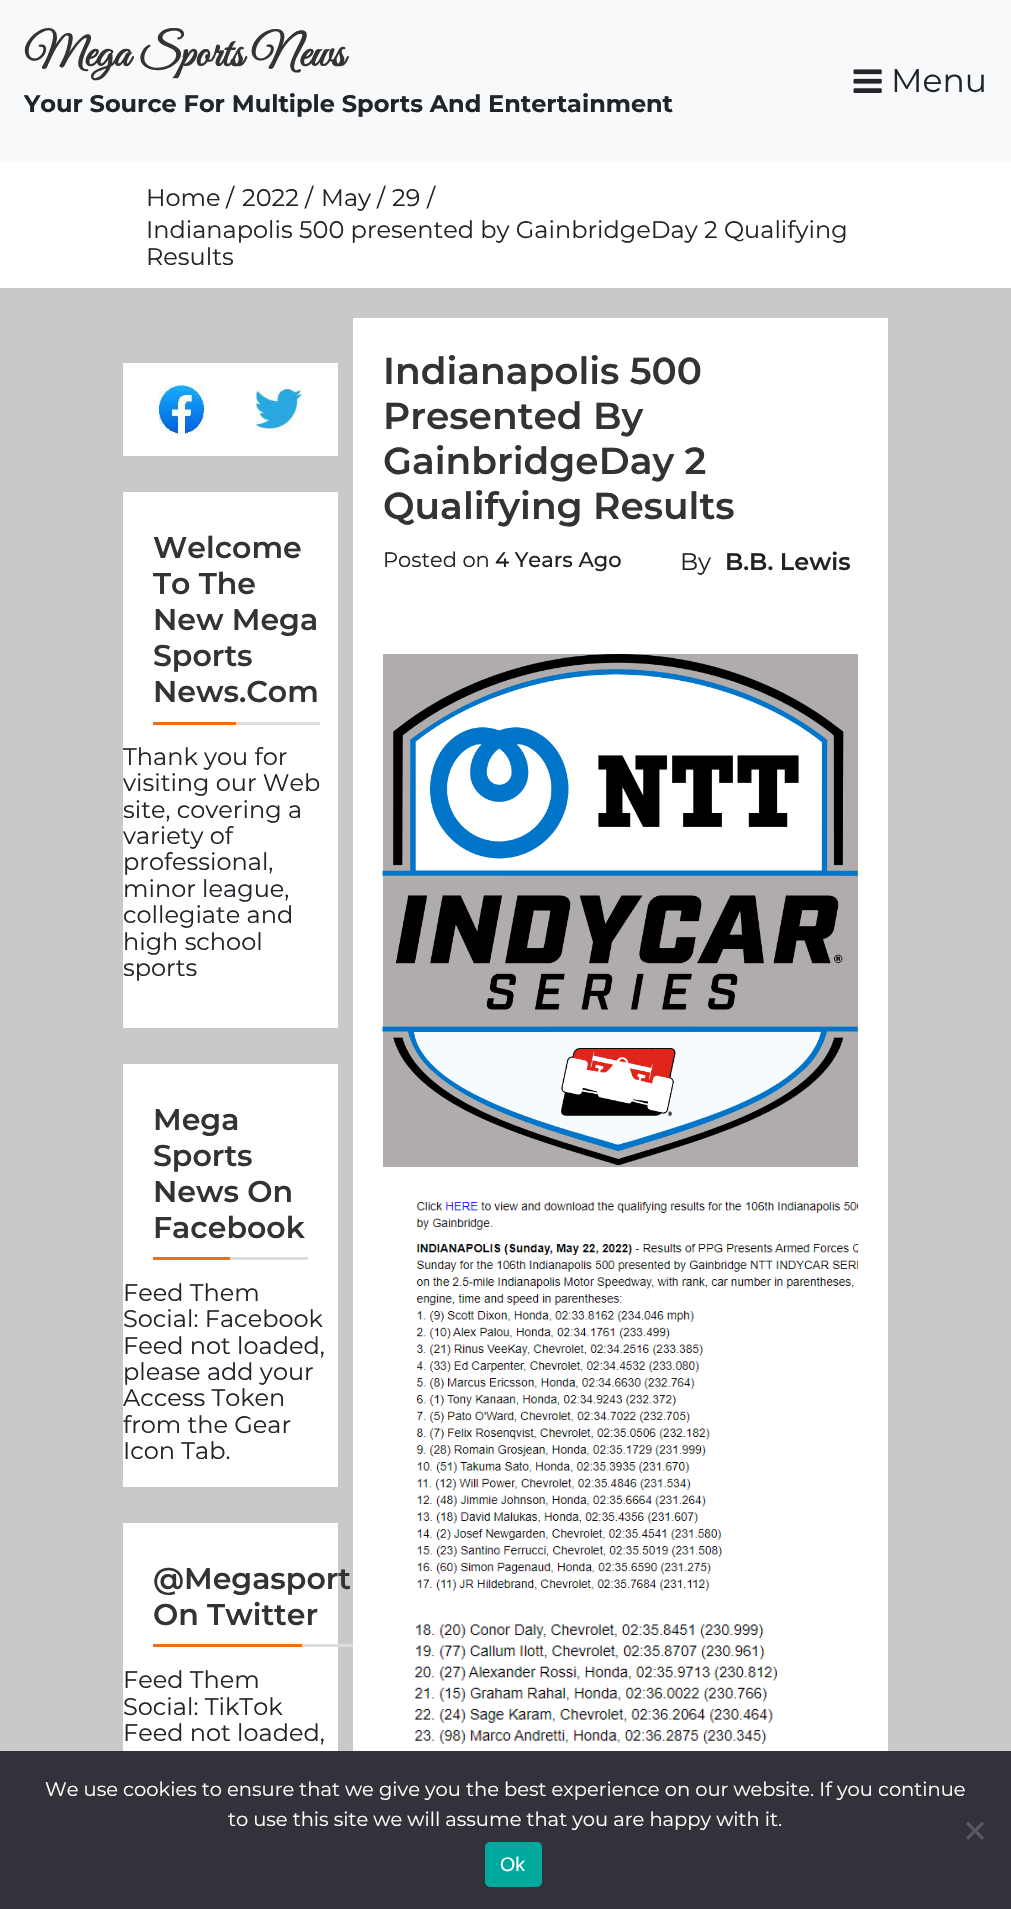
void draw(SkCanvas* canvas) {
	SkPaint fill;
	fill.setAntiAlias(true);
	auto makeFont = [&](const char* family, int weight, float size, bool italic = false) {
		SkFontStyle style(weight, SkFontStyle::kNormal_Width,
			italic ? SkFontStyle::kItalic_Slant : SkFontStyle::kUpright_Slant);
		SkFont result(fontMgr->matchFamilyStyle(family, style), size);
		result.setSubpixel(true);
		return result;
	};
	auto text = [&](const char* s, float x, float y, const SkFont& font) {
		canvas->drawString(s, x, y, font, fill);
	};
	auto spacedText = [&](const char* s, float x, float y, const SkFont& font, const SkPaint& ink, float letter, float word) {
		std::vector<SkGlyphID> glyphs(font.countText(s, strlen(s), SkTextEncoding::kUTF8));
		std::vector<float> xs(glyphs.size());
		font.textToGlyphs(s, strlen(s), SkTextEncoding::kUTF8, glyphs);
		font.getXPos(glyphs, xs, x);
		float extra = 0;
		for (size_t i = 0; i < glyphs.size(); i++) {
			xs[i] += extra;
			extra += letter + word * (glyphs[i] == font.unicharToGlyph(' '));
		}
		canvas->drawTextBlob(SkTextBlob::MakeFromPosHGlyphs(glyphs, xs, y, font), 0, 0, ink);
	};
	auto box = [&](float l, float t, float r, float b) {
		canvas->drawRect(SkRect::MakeLTRB(l, t, r, b), fill);
	};
	auto roundBox = [&](float l, float t, float r, float b, float radius) {
		canvas->drawRoundRect(SkRect::MakeLTRB(l, t, r, b), radius, radius, fill);
	};
	auto picture = [&](const char* path, float l, float t, float r, float b) {
		auto image = SkImages::DeferredFromEncodedData(SkData::MakeFromFileName(path));
		canvas->drawImageRect(image, SkRect::MakeLTRB(l, t, r, b), SkSamplingOptions());
	};
	canvas->clear(0xFFC9C9C9);
	fill.setColor(0xFFF8F9FA);
	box(0, 0, 1011, 161);
	picture("image0.png", 853, 69, 882, 93);
	fill.setColor(0xFFFFFFFF);
	box(0, 161, 1011, 288);
	box(353, 318, 888, 1751);
	fill.setColor(0xFFB1ACAC);
	box(383, 654, 858, 1167);
	picture("image1.png", 382, 654, 858, 1166);
	picture("image2.png", 383, 1191, 858, 1593);
	picture("image3.png", 383, 1617, 858, 1751);
	fill.setColor(0xFFFFFFFF);
	box(123, 363, 338, 456);
	picture("image4.png", 159, 385, 204, 434);
	picture("image5.png", 256, 385, 302, 433);
	box(123, 492, 338, 1028);
	fill.setColor(0xFFEB6E1A);
	box(153, 722, 236, 725);
	fill.setColor(0xFFDDDDDD);
	box(236, 722, 320, 725);
	fill.setColor(0xFFFFFFFF);
	box(123, 1064, 338, 1487);
	fill.setColor(0xFFEB6E1A);
	box(153, 1257, 230, 1260);
	fill.setColor(0xFFDDDDDD);
	box(230, 1257, 308, 1260);
	fill.setColor(0xFFFFFFFF);
	box(123, 1523, 338, 1751);
	fill.setColor(0xFFEB6E1A);
	box(153, 1644, 302, 1647);
	fill.setColor(0xFFDDDDDD);
	box(302, 1644, 353, 1647);
	fill.setColor(0xFF32323A);
	box(0, 1751, 1011, 1909);
	fill.setColor(0xFF59595D);
	canvas->drawPath(SkPathBuilder().moveTo(982, 1821.5f).lineTo(984, 1824).lineTo(968, 1840).lineTo(966, 1837.5f).close().detach(), fill);
	canvas->drawPath(SkPathBuilder().moveTo(966, 1824).lineTo(968, 1821.5f).lineTo(984, 1837.5f).lineTo(982, 1840).close().detach(), fill);
	fill.setColor(0xFF00A99D);
	roundBox(485, 1842, 542, 1887, 5);
	auto font1 = makeFont("Great Vibes", 700, 45);
	fill.setColor(0xFF333333);
	spacedText("Mega Sports News", 24, 66, font1, fill, 0, 1);
	auto font2 = makeFont("Montserrat", 700, 24);
	fill.setColor(0xFF212529);
	text("Your Source For Multiple Sports And Entertainment", 24, 112, font2);
	auto font3 = makeFont("Montserrat", 400, 33);
	text("Menu", 891, 92, font3);
	auto font4 = makeFont("Montserrat", 400, 24);
	fill.setColor(0xFF222222);
	text("Home", 146, 206, font4);
	fill.setColor(0xFF212529);
	text("/", 226, 206, font4);
	fill.setColor(0xFF222222);
	text("2022", 242, 206, font4);
	fill.setColor(0xFF212529);
	text("/", 305, 206, font4);
	fill.setColor(0xFF222222);
	text("May", 321, 206, font4);
	fill.setColor(0xFF212529);
	text("/", 377, 206, font4);
	fill.setColor(0xFF222222);
	text("29", 392, 206, font4);
	fill.setColor(0xFF212529);
	text("/", 427, 206, font4);
	text("Indianapolis 500 presented by GainbridgeDay 2 Qualifying", 146, 238, font4);
	text("Results", 146, 265, font4);
	auto font5 = makeFont("Montserrat", 600, 37.5f);
	fill.setColor(0xFF333333);
	text("Indianapolis 500", 383, 384, font5);
	text("Presented By", 383, 429, font5);
	text("GainbridgeDay 2", 383, 474, font5);
	text("Qualifying Results", 383, 519, font5);
	auto font6 = makeFont("Montserrat", 400, 21);
	fill.setColor(0xFF212529);
	text("Posted on", 383, 567, font6);
	auto font7 = makeFont("Montserrat", 500, 21);
	fill.setColor(0xFF222222);
	text("4 Years Ago", 495, 567, font7);
	fill.setColor(0xFF212529);
	text("By", 680, 570, font4);
	auto font8 = makeFont("Montserrat", 600, 24);
	fill.setColor(0xFF222222);
	text("B.B. Lewis", 725, 570, font8);
	auto font9 = makeFont("Montserrat", 600, 30);
	fill.setColor(0xFF333333);
	text("Welcome", 153, 558, font9);
	text("To The", 153, 594, font9);
	text("New Mega", 153, 630, font9);
	text("Sports", 153, 666, font9);
	text("News.Com", 153, 702, font9);
	fill.setColor(0xFF212529);
	text("Thank you for", 123, 765, font4);
	text("visiting our Web", 123, 791, font4);
	text("site, covering a", 123, 818, font4);
	text("variety of", 123, 844, font4);
	text("professional,", 123, 870, font4);
	text("minor league,", 123, 897, font4);
	text("collegiate and", 123, 923, font4);
	text("high school", 123, 950, font4);
	text("sports", 123, 976, font4);
	fill.setColor(0xFF333333);
	text("Mega", 153, 1130, font9);
	text("Sports", 153, 1166, font9);
	text("News On", 153, 1202, font9);
	text("Facebook", 153, 1238, font9);
	fill.setColor(0xFF212529);
	text("Feed Them", 123, 1301, font4);
	text("Social: Facebook", 123, 1327, font4);
	text("Feed not loaded,", 123, 1354, font4);
	text("please add your", 123, 1380, font4);
	text("Access Token", 123, 1406, font4);
	text("from the Gear", 123, 1433, font4);
	text("Icon Tab.", 123, 1459, font4);
	fill.setColor(0xFF333333);
	text("@Megasport", 153, 1589, font9);
	text("On Twitter", 153, 1625, font9);
	fill.setColor(0xFF212529);
	text("Feed Them", 123, 1688, font4);
	text("Social: TikTok", 123, 1715, font4);
	text("Feed not loaded,", 123, 1741, font4);
	auto font10 = makeFont("Montserrat", 400, 19.5f);
	fill.setColor(0xFFFFFFFF);
	text("We use cookies to ensure that we give you the best experience on our website. If you continue", 45, 1796, font10);
	text("to use this site we will assume that you are happy with it.", 228, 1826, font10);
	auto font11 = makeFont("Liberation Sans", 400, 19.5f);
	text("Ok", 500, 1871, font11);
}
